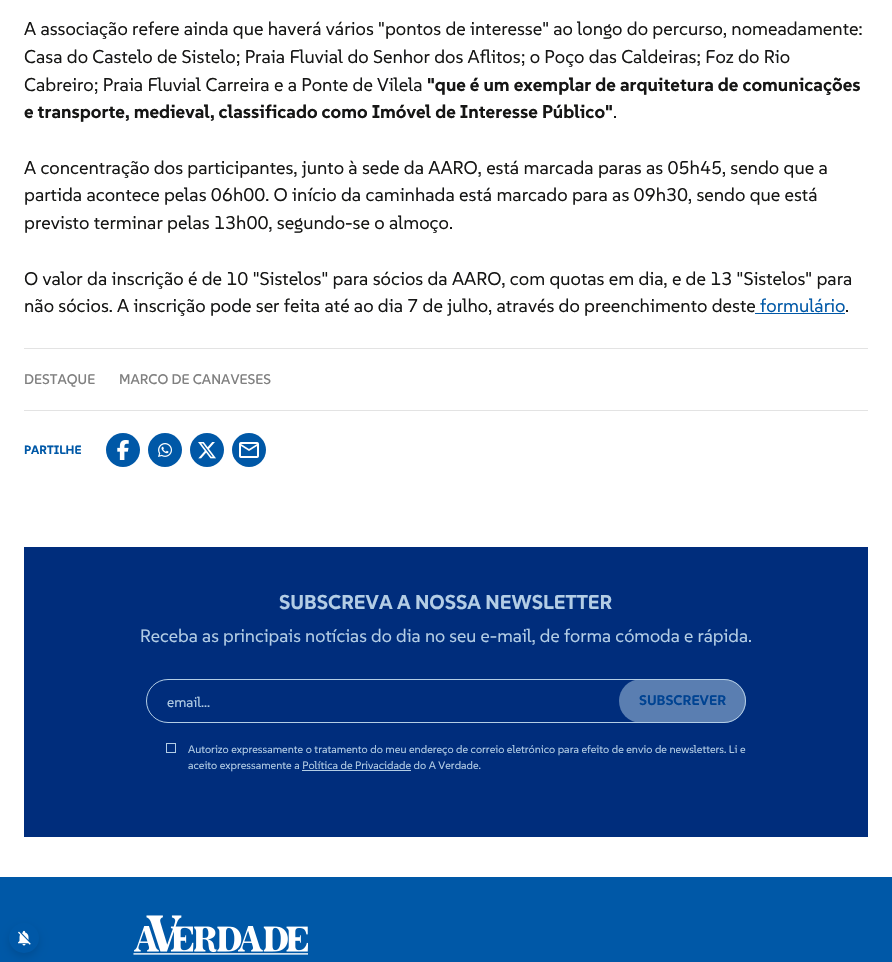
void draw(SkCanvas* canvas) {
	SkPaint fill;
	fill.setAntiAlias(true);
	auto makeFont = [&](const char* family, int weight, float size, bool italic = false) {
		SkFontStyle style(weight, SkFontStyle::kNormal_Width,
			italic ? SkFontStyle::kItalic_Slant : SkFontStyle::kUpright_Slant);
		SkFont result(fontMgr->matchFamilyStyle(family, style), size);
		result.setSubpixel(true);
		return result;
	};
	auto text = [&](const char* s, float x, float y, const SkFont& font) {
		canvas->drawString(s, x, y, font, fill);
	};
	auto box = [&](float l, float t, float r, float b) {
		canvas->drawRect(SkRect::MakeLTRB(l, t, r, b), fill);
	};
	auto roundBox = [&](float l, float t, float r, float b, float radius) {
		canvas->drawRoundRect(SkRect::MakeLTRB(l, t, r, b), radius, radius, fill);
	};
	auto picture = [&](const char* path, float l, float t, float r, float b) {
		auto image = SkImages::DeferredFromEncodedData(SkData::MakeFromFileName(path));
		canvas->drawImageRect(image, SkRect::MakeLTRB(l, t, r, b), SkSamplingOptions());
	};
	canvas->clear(0xFFFFFFFF);
	fill.setColor(0xFF0058A7);
	box(755, 313, 845, 314);
	fill.setColor(0xFFE3E3E3);
	box(24, 348, 868, 349);
	box(24, 410, 868, 411);
	fill.setColor(0xFF0058A7);
	canvas->drawCircle(123, 450, 17, fill);
	picture("image0.png", 117, 440, 129, 460);
	canvas->drawCircle(165, 450, 17, fill);
	picture("image1.png", 158, 443, 172, 457);
	canvas->drawCircle(207, 450, 17, fill);
	picture("image2.png", 198, 442, 216, 459);
	canvas->drawCircle(249, 450, 17, fill);
	picture("image3.png", 239, 442, 259, 458);
	fill.setColor(0xFF002D7C);
	box(24, 547, 868, 837);
	fill.setStyle(SkPaint::kStroke_Style);
	fill.setStrokeWidth(1);
	fill.setColor(0xFFB3CDE5);
	canvas->drawRoundRect(SkRect::MakeLTRB(146.5f, 679.5f, 745.5f, 722.5f), 21.5f, 21.5f, fill);
	fill.setStyle(SkPaint::kFill_Style);
	fill.setColor(0x80B3CDE5);
	roundBox(619, 679, 746, 723, 22);
	fill.setStyle(SkPaint::kStroke_Style);
	fill.setColor(0xFFB3CDE5);
	canvas->drawRect(SkRect::MakeLTRB(166.5f, 743.5f, 175.5f, 752.5f), fill);
	fill.setStyle(SkPaint::kFill_Style);
	box(302, 770, 411, 771);
	fill.setColor(0xFF0058A7);
	box(0, 877, 892, 962);
	picture("image4.png", 133, 915, 308, 955);
	fill.setColor(0x1F000000);
	fill.setMaskFilter(SkMaskFilter::MakeBlur(kNormal_SkBlurStyle, 4));
	canvas->drawRoundRect(SkRect::MakeLTRB(9, 927, 39, 957), 15, 15, fill);
	fill.setMaskFilter(nullptr);
	fill.setColor(0xFF0058A7);
	canvas->drawCircle(24, 938, 15, fill);
	picture("image5.png", 18, 930, 31, 946);
	auto font1 = makeFont("SUSE", 400, 18.4f);
	fill.setColor(0xFF161615);
	text("A associação refere ainda que haverá vários \"pontos de interesse\" ao longo do percurso, nomeadamente:", 24, 35, font1);
	text("Casa do Castelo de Sistelo; Praia Fluvial do Senhor dos Aflitos; o Poço das Caldeiras; Foz do Rio", 24, 63, font1);
	text("Cabreiro; Praia Fluvial Carreira e a Ponte de Vilela", 24, 91, font1);
	auto font2 = makeFont("SUSE", 700, 18.4f);
	text("\"que é um exemplar de arquitetura de comunicações", 427, 91, font2);
	text("e transporte, medieval, classificado como Imóvel de Interesse Público\"", 24, 118, font2);
	text(".", 613, 118, font1);
	text("A concentração dos participantes, junto à sede da AARO, está marcada paras as 05h45, sendo que a", 24, 174, font1);
	text("partida acontece pelas 06h00. O início da caminhada está marcado para as 09h30, sendo que está", 24, 201, font1);
	text("previsto terminar pelas 13h00, segundo-se o almoço.", 24, 229, font1);
	text("O valor da inscrição é de 10 \"Sistelos\" para sócios da AARO, com quotas em dia, e de 13 \"Sistelos\" para", 24, 285, font1);
	text("não sócios. A inscrição pode ser feita até ao dia 7 de julho, através do preenchimento deste", 24, 312, font1);
	fill.setColor(0xFF0058A7);
	text("formulário", 760, 312, font1);
	fill.setColor(0xFF161615);
	text(".", 845, 312, font1);
	auto font3 = makeFont("SUSE", 500, 14);
	fill.setColor(0xFF808080);
	text("DESTAQUE", 24, 384, font3);
	text("MARCO DE CANAVESES", 119, 384, font3);
	auto font4 = makeFont("SUSE", 700, 12);
	fill.setColor(0xFF0058A7);
	text("PARTILHE", 24, 454, font4);
	auto font5 = makeFont("SUSE", 700, 20);
	fill.setColor(0xFFB3CDE5);
	text("SUBSCREVA A NOSSA NEWSLETTER", 279, 609, font5);
	auto font6 = makeFont("SUSE", 400, 18);
	text("Receba as principais notícias do dia no seu e-mail, de forma cómoda e rápida.", 140, 642, font6);
	auto font7 = makeFont("SUSE", 400, 14);
	text("email...", 167, 707, font7);
	auto font8 = makeFont("SUSE", 700, 14);
	fill.setColor(0xFF004392);
	text("SUBSCREVER", 639, 705, font8);
	auto font9 = makeFont("SUSE", 400, 10.88f);
	fill.setColor(0xFFB3CDE5);
	text("Autorizo expressamente o tratamento do meu endereço de correio eletrónico para efeito de envio de newsletters. Li e", 188, 753, font9);
	text("aceito expressamente a Política de Privacidade do A Verdade.", 188, 769, font9);
}
